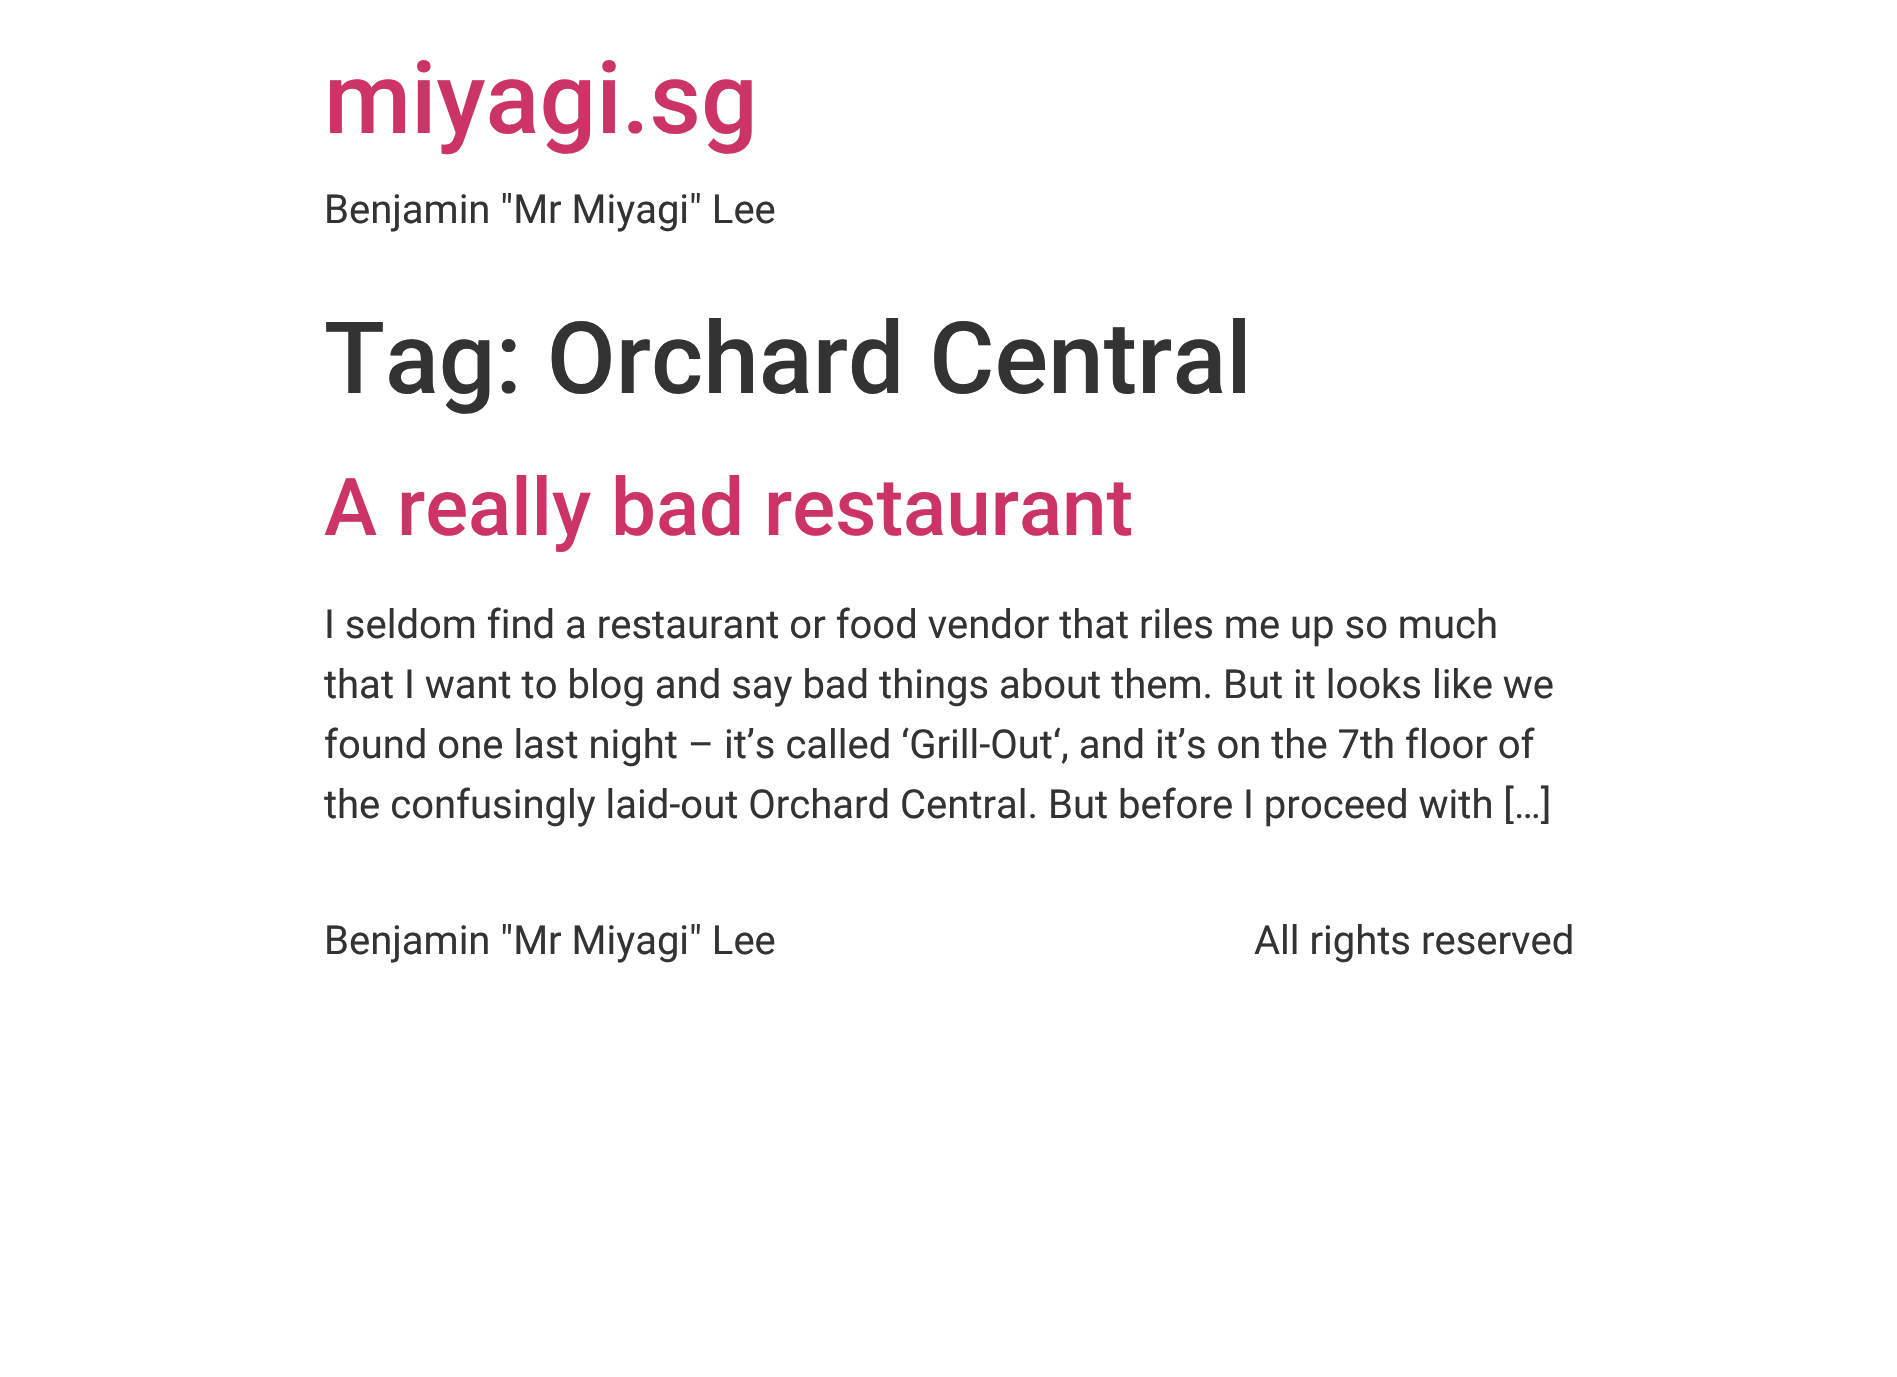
void draw(SkCanvas* canvas) {
	SkPaint fill;
	fill.setAntiAlias(true);
	auto makeFont = [&](const char* family, int weight, float size, bool italic = false) {
		SkFontStyle style(weight, SkFontStyle::kNormal_Width,
			italic ? SkFontStyle::kItalic_Slant : SkFontStyle::kUpright_Slant);
		SkFont result(fontMgr->matchFamilyStyle(family, style), size);
		result.setSubpixel(true);
		return result;
	};
	auto text = [&](const char* s, float x, float y, const SkFont& font) {
		canvas->drawString(s, x, y, font, fill);
	};
	canvas->clear(0xFFFFFFFF);
	auto font1 = makeFont("Roboto", 500, 100);
	fill.setColor(0xFFCC3366);
	text("miyagi.sg", 324, 133, font1);
	auto font2 = makeFont("Roboto", 400, 40);
	fill.setColor(0xFF333333);
	text("Benjamin \"Mr Miyagi\" Lee", 324, 223, font2);
	text("Tag: Orchard Central", 324, 393, font1);
	auto font3 = makeFont("Roboto", 500, 80);
	fill.setColor(0xFFCC3366);
	text("A really bad restaurant", 324, 535, font3);
	fill.setColor(0xFF333333);
	text("I seldom find a restaurant or food vendor that riles me up so much", 324, 638, font2);
	text("that I want to blog and say bad things about them. But it looks like we", 324, 698, font2);
	text("found one last night – it’s called ‘Grill-Out‘, and it’s on the 7th floor of", 324, 758, font2);
	text("the confusingly laid-out Orchard Central. But before I proceed with […]", 324, 818, font2);
	text("Benjamin \"Mr Miyagi\" Lee", 324, 954, font2);
	text("All rights reserved", 1254, 954, font2);
}
